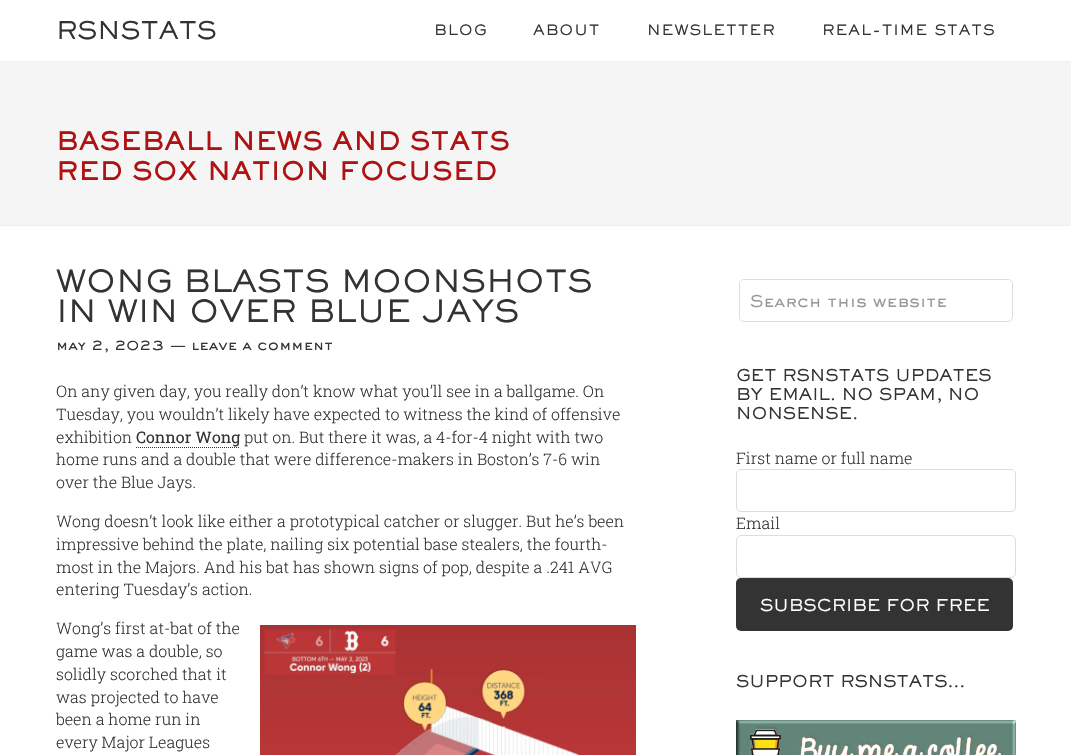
void draw(SkCanvas* canvas) {
	SkPaint fill;
	fill.setAntiAlias(true);
	auto makeFont = [&](const char* family, int weight, float size, bool italic = false) {
		SkFontStyle style(weight, SkFontStyle::kNormal_Width,
			italic ? SkFontStyle::kItalic_Slant : SkFontStyle::kUpright_Slant);
		SkFont result(fontMgr->matchFamilyStyle(family, style), size);
		result.setSubpixel(true);
		return result;
	};
	auto text = [&](const char* s, float x, float y, const SkFont& font) {
		canvas->drawString(s, x, y, font, fill);
	};
	auto spacedText = [&](const char* s, float x, float y, const SkFont& font, const SkPaint& ink, float letter, float word) {
		std::vector<SkGlyphID> glyphs(font.countText(s, strlen(s), SkTextEncoding::kUTF8));
		std::vector<float> xs(glyphs.size());
		font.textToGlyphs(s, strlen(s), SkTextEncoding::kUTF8, glyphs);
		font.getXPos(glyphs, xs, x);
		float extra = 0;
		for (size_t i = 0; i < glyphs.size(); i++) {
			xs[i] += extra;
			extra += letter + word * (glyphs[i] == font.unicharToGlyph(' '));
		}
		canvas->drawTextBlob(SkTextBlob::MakeFromPosHGlyphs(glyphs, xs, y, font), 0, 0, ink);
	};
	auto box = [&](float l, float t, float r, float b) {
		canvas->drawRect(SkRect::MakeLTRB(l, t, r, b), fill);
	};
	auto roundBox = [&](float l, float t, float r, float b, float radius) {
		canvas->drawRoundRect(SkRect::MakeLTRB(l, t, r, b), radius, radius, fill);
	};
	auto picture = [&](const char* path, float l, float t, float r, float b) {
		auto image = SkImages::DeferredFromEncodedData(SkData::MakeFromFileName(path));
		canvas->drawImageRect(image, SkRect::MakeLTRB(l, t, r, b), SkSamplingOptions());
	};
	canvas->clear(0xFFFFFFFF);
	fill.setColor(0xFFEEEEEE);
	box(0, 61, 1071, 62);
	fill.setColor(0xFFF5F5F5);
	box(0, 62, 1071, 225);
	fill.setColor(0xFFEEEEEE);
	box(0, 225, 1071, 226);
	fill.setStyle(SkPaint::kStroke_Style);
	fill.setStrokeWidth(1);
	fill.setColor(0xFF333333);
	fill.setPathEffect(SkDashPathEffect::Make({{1, 1}}, 0));
	canvas->drawPath(SkPathBuilder().moveTo(136, 447.5f).lineTo(240, 447.5f).detach(), fill);
	fill.setPathEffect(nullptr);
	picture("image0.png", 260, 625, 636, 755);
	fill.setColor(0xFFDDDDDD);
	canvas->drawRoundRect(SkRect::MakeLTRB(739.5f, 279.5f, 1012.5f, 321.5f), 4.5f, 4.5f, fill);
	canvas->drawRoundRect(SkRect::MakeLTRB(736.5f, 469.5f, 1015.5f, 511.5f), 4.5f, 4.5f, fill);
	canvas->drawRoundRect(SkRect::MakeLTRB(736.5f, 535.5f, 1015.5f, 577.5f), 4.5f, 4.5f, fill);
	fill.setStyle(SkPaint::kFill_Style);
	fill.setColor(0xFF333333);
	roundBox(736, 578, 1013, 631, 5);
	picture("image1.png", 736, 720, 1016, 755);
	auto font1 = makeFont("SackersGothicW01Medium", 500, 24);
	text("RSNSTATS", 56, 39, font1);
	auto font2 = makeFont("SackersGothicW01Medium", 500, 14);
	spacedText("BLOG", 434, 35, font2, fill, 1, 0);
	spacedText("ABOUT", 533, 35, font2, fill, 1, 0);
	spacedText("NEWSLETTER", 647, 35, font2, fill, 1, 0);
	spacedText("REAL-TIME STATS", 822, 35, font2, fill, 1, 0);
	auto font3 = makeFont("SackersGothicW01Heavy", 900, 25);
	fill.setColor(0xFFAF1212);
	text("BASEBALL NEWS AND STATS", 56, 150, font3);
	text("RED SOX NATION FOCUSED", 56, 180, font3);
	auto font4 = makeFont("SackersGothicW01Medium", 500, 30);
	fill.setColor(0xFF333333);
	text("WONG BLASTS MOONSHOTS", 56, 292, font4);
	text("IN WIN OVER BLUE JAYS", 56, 322, font4);
	text("may 2, 2023", 56, 350, font2);
	text("—", 171, 350, font2);
	text("leave a comment", 191, 350, font2);
	auto font5 = makeFont("Roboto Slab", 300, 16);
	text("On any given day, you really don’t know what you’ll see in a ballgame. On", 56, 397, font5);
	text("Tuesday, you wouldn’t likely have expected to witness the kind of offensive", 56, 420, font5);
	text("exhibition", 56, 443, font5);
	auto font6 = makeFont("Roboto Slab", 400, 16);
	text("Connor Wong", 136, 443, font6);
	text("put on. But there it was, a 4-for-4 night with two", 244, 443, font5);
	text("home runs and a double that were difference-makers in Boston’s 7-6 win", 56, 465, font5);
	text("over the Blue Jays.", 56, 488, font5);
	text("Wong doesn’t look like either a prototypical catcher or slugger. But he’s been", 56, 527, font5);
	text("impressive behind the plate, nailing six potential base stealers, the fourth-", 56, 550, font5);
	text("most in the Majors. And his bat has shown signs of pop, despite a .241 AVG", 56, 573, font5);
	text("entering Tuesday’s action.", 56, 595, font5);
	text("Wong’s first at-bat of the", 56, 634, font5);
	text("game was a double, so", 56, 657, font5);
	text("solidly scorched that it", 56, 680, font5);
	text("was projected to have", 56, 703, font5);
	text("been a home run in", 56, 725, font5);
	text("every Major Leagues", 56, 748, font5);
	auto font7 = makeFont("SackersGothicW01Medium", 500, 16);
	fill.setColor(0xFF999999);
	text("Search this website", 750, 307, font7);
	fill.setColor(0xFF333333);
	text("GET RSNSTATS UPDATES", 736, 381, font7);
	text("BY EMAIL. NO SPAM, NO", 736, 400, font7);
	text("NONSENSE.", 736, 419, font7);
	text("First name or full name", 736, 464, font5);
	text("Email", 736, 529, font5);
	fill.setColor(0xFFFFFFFF);
	text("SUBSCRIBE FOR FREE", 760, 611, font7);
	fill.setColor(0xFF333333);
	text("SUPPORT RSNSTATS…", 736, 687, font7);
}
